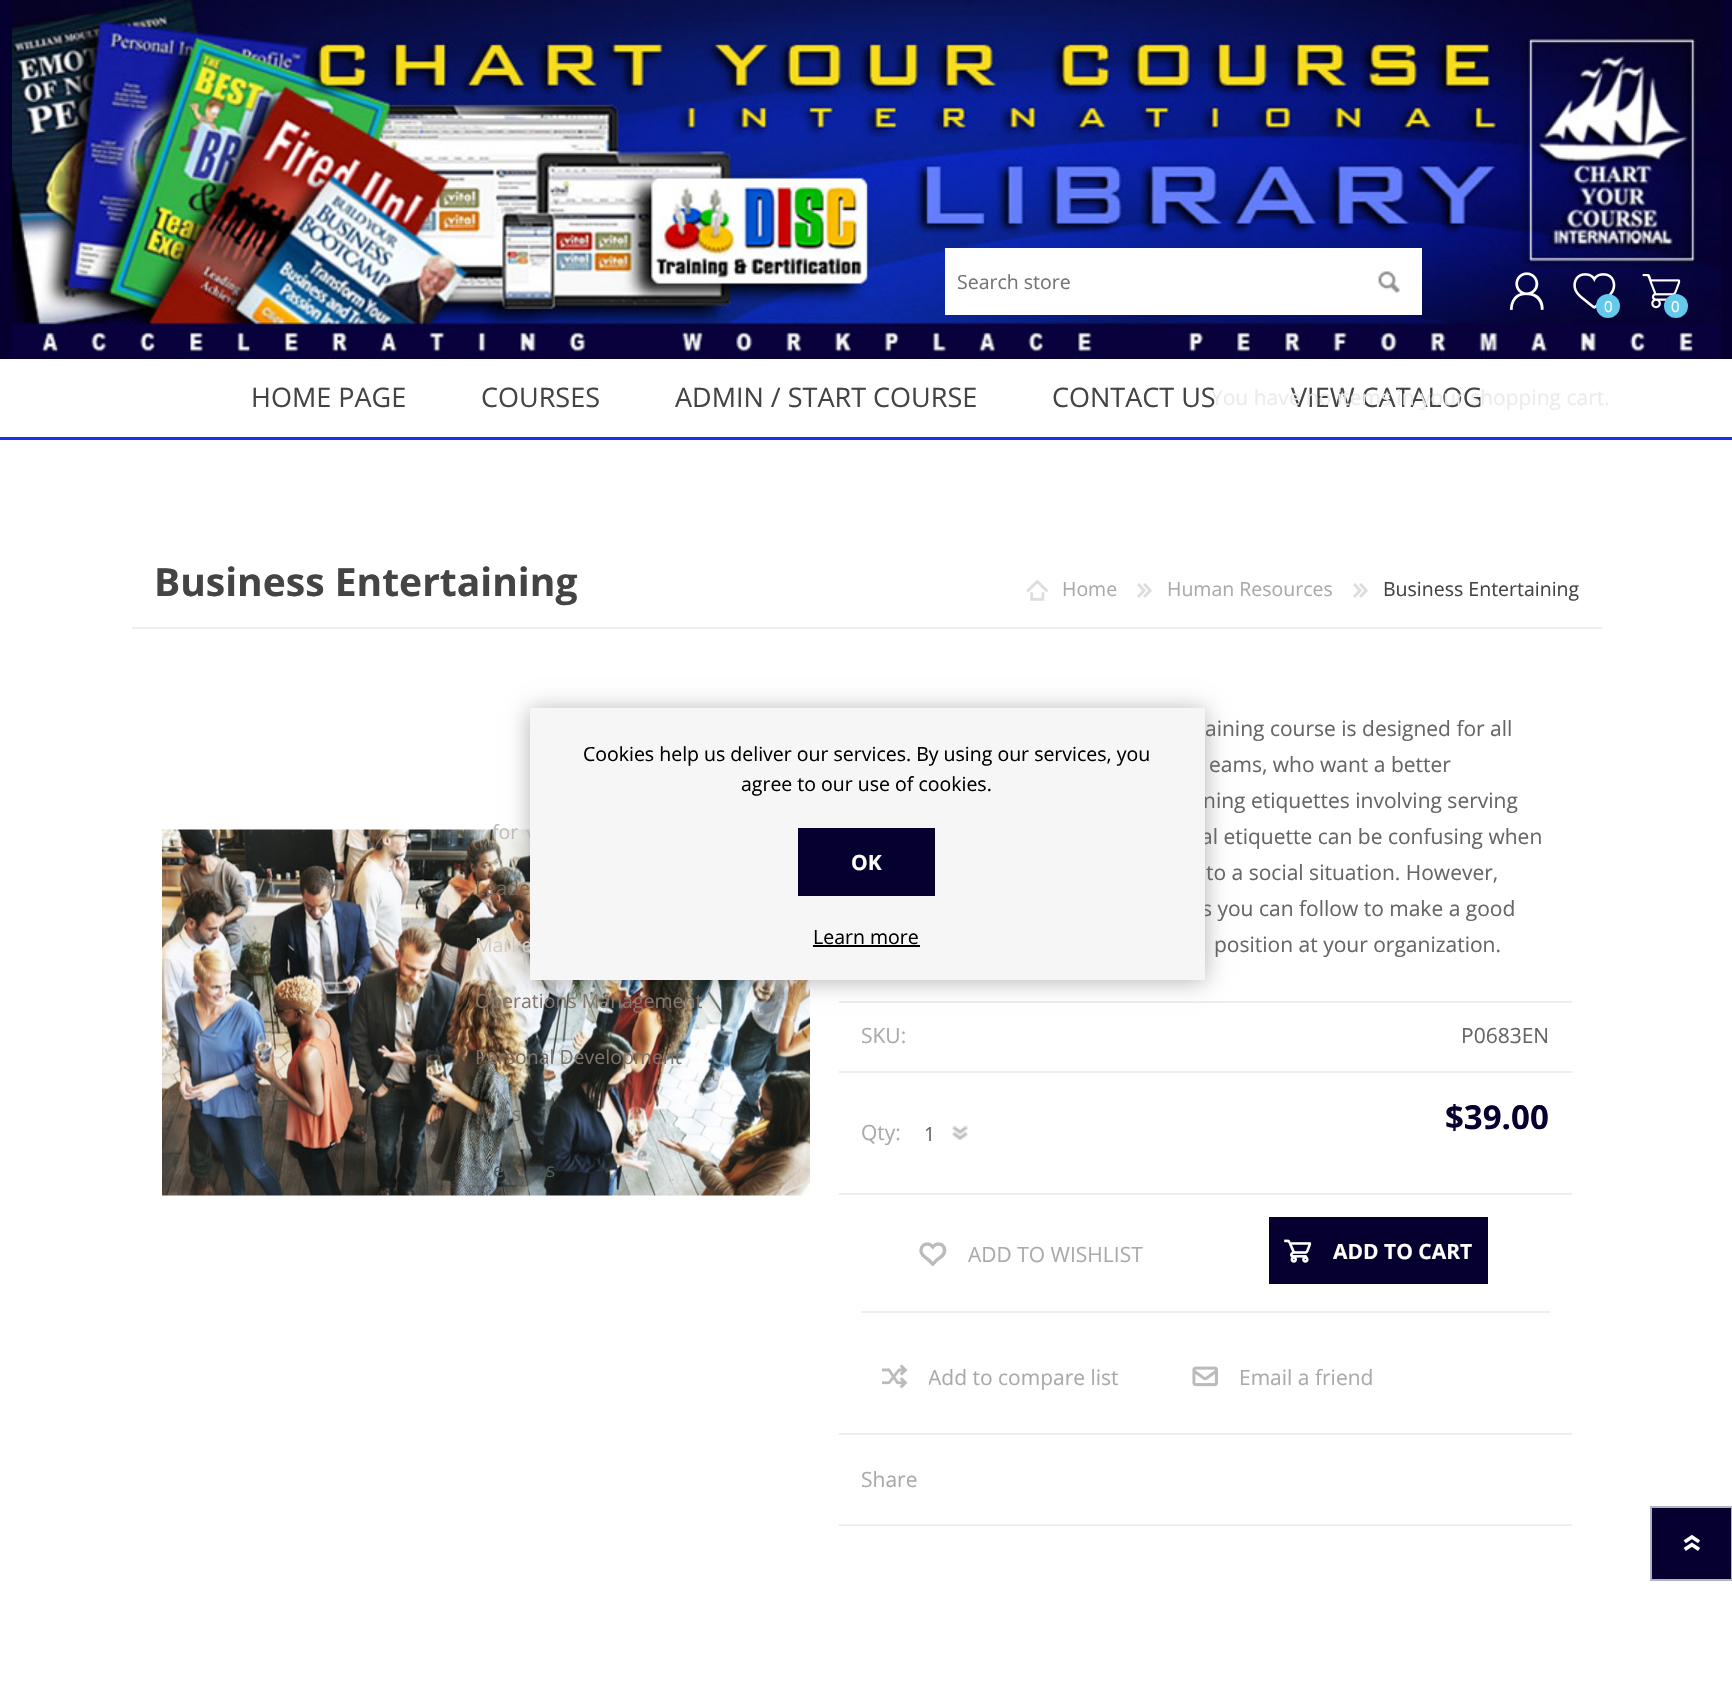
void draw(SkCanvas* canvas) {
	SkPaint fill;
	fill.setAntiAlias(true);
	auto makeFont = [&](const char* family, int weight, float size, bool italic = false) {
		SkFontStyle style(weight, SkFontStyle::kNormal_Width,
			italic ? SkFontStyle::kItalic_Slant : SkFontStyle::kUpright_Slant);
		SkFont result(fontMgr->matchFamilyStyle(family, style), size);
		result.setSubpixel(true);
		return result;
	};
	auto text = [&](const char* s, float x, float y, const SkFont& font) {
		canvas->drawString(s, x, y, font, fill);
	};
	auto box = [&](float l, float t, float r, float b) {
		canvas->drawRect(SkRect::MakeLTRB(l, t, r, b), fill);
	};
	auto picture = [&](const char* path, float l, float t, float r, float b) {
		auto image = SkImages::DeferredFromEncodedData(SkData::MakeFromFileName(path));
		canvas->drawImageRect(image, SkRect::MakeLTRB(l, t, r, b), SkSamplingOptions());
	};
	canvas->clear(0xFFFFFFFF);
	fill.setColor(0xFF060030);
	box(0, 0, 1732, 359);
	picture("image0.png", 12, 0, 1722, 359);
	fill.setColor(0xFFFFFFFF);
	box(945, 248, 1422, 315);
	picture("image1.png", 1378, 271, 1400, 293);
	picture("image2.png", 1510, 272, 1544, 310);
	picture("image3.png", 1642, 274, 1681, 309);
	fill.setColor(0xFF64C9EA);
	canvas->drawCircle(1676, 306, 12, fill);
	picture("image4.png", 1573, 273, 1616, 309);
	canvas->drawCircle(1608, 306, 12, fill);
	fill.setColor(0xFF1D2EED);
	box(0, 437, 1732, 440);
	fill.setColor(0xFFEEEEEE);
	box(132, 627, 1602, 629);
	picture("image5.png", 1026, 579, 1049, 601);
	picture("image6.png", 1137, 583, 1152, 598);
	picture("image6.png", 1353, 583, 1368, 598);
	picture("image7.png", 162, 829, 810, 1196);
	box(839, 1001, 1572, 1003);
	box(839, 1071, 1572, 1073);
	picture("image8.png", 952, 1125, 968, 1140);
	box(839, 1193, 1572, 1195);
	box(839, 1433, 1572, 1435);
	picture("image9.png", 919, 1242, 947, 1266);
	fill.setColor(0xFF060030);
	box(1269, 1217, 1488, 1284);
	picture("image10.png", 1284, 1239, 1312, 1263);
	fill.setColor(0xFFEEEEEE);
	box(861, 1311, 1550, 1313);
	picture("image11.png", 882, 1364, 908, 1389);
	picture("image12.png", 1192, 1366, 1218, 1387);
	box(839, 1524, 1572, 1526);
	fill.setColor(0x4D000000);
	fill.setMaskFilter(SkMaskFilter::MakeBlur(kNormal_SkBlurStyle, 11));
	canvas->drawRect(SkRect::MakeLTRB(530, 710, 1205, 981), fill);
	fill.setMaskFilter(nullptr);
	fill.setColor(0xFF060030);
	canvas->drawRect(SkRect::MakeLTRB(1651, 1507, 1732, 1580), fill);
	fill.setStyle(SkPaint::kStroke_Style);
	fill.setStrokeWidth(2);
	fill.setColor(0xFFB4B3C1);
	canvas->drawRect(SkRect::MakeLTRB(1651, 1507, 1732, 1580), fill);
	picture("image13.png", 1683, 1534, 1700, 1551);
	auto font1 = makeFont("Open Sans", 400, 19.5f);
	fill.setStyle(SkPaint::kFill_Style);
	fill.setColor(0xFF737671);
	text("Search store", 957, 289, font1);
	auto font2 = makeFont("Open Sans", 400, 15);
	fill.setColor(0xFFFFFFFF);
	text("0", 1671, 312, font2);
	text("0", 1604, 312, font2);
	auto font3 = makeFont("Open Sans", 400, 27);
	fill.setColor(0xFF444444);
	text("HOME PAGE", 251, 407, font3);
	text("COURSES", 481, 407, font3);
	fill.setColor(0xFFBFBCB5);
	text("for", 492, 839, font1);
	fill.setColor(0xFF76675A);
	text("Leade", 475, 895, font1);
	fill.setColor(0xFFD5CDC4);
	text("Marke", 475, 952, font1);
	fill.setColor(0xFF85766D);
	text("Operations Management", 475, 1008, font1);
	fill.setColor(0xFF7D7064);
	text("Personal Development", 475, 1064, font1);
	fill.setColor(0xFF737671);
	text("s", 512, 1121, font1);
	fill.setColor(0xFF51595A);
	text("e", 493, 1177, font1);
	text("s", 546, 1177, font1);
	fill.setColor(0xFF444444);
	text("ADMIN / START COURSE", 675, 407, font3);
	text("CONTACT US", 1052, 407, font3);
	text("VIEW CATALOG", 1291, 407, font3);
	auto font4 = makeFont("Open Sans", 400, 21);
	fill.setColor(0xFFEBEBEB);
	text("You have no items in your shopping cart.", 1211, 405, font4);
	auto font5 = makeFont("Open Sans", 700, 39);
	fill.setColor(0xFF444444);
	text("Business Entertaining", 154, 596, font5);
	fill.setColor(0xFFAAAAAA);
	text("Home", 1062, 596, font1);
	text("Human Resources", 1167, 596, font1);
	fill.setColor(0xFF444444);
	text("Business Entertaining", 1383, 596, font1);
	fill.setColor(0xFF666666);
	text("aining course is designed for all", 1205, 736, font4);
	text("eams, who want a better", 1209, 772, font4);
	text("ning etiquettes involving serving", 1203, 808, font4);
	text("al etiquette can be confusing when", 1201, 844, font4);
	text("to a social situation. However,", 1206, 880, font4);
	text("s you can follow to make a good", 1202, 916, font4);
	text("position at your organization.", 1214, 952, font4);
	fill.setColor(0xFFAAAAAA);
	text("SKU:", 861, 1043, font4);
	fill.setColor(0xFF666666);
	text("P0683EN", 1461, 1043, font4);
	auto font6 = makeFont("Open Sans", 700, 33);
	fill.setColor(0xFF060030);
	text("$39.00", 1445, 1129, font6);
	fill.setColor(0xFFAAAAAA);
	text("Qty:", 861, 1140, font4);
	fill.setColor(0xFF666666);
	text("1", 924, 1141, font1);
	fill.setColor(0xFFAAAAAA);
	text("ADD TO WISHLIST", 968, 1262, font4);
	auto font7 = makeFont("Open Sans", 700, 21);
	fill.setColor(0xFFFFFFFF);
	text("ADD TO CART", 1333, 1259, font7);
	fill.setColor(0xFFAAAAAA);
	text("Add to compare list", 928, 1385, font4);
	fill.setColor(0xFFFFFFFF);
	box(928, 1382, 929, 1385);
	fill.setColor(0xFFAAAAAA);
	text("Email a friend", 1239, 1385, font4);
	text("Share", 861, 1487, font4);
	fill.setColor(0xFFF6F6F6);
	box(530, 708, 1205, 980);
	fill.setColor(0xFF000000);
	text("Cookies help us deliver our services. By using our services, you", 583, 761, font1);
	text("agree to our use of cookies.", 741, 791, font1);
	fill.setColor(0xFF060030);
	box(798, 828, 935, 896);
	fill.setColor(0xFFFFFFFF);
	text("OK", 851, 870, font7);
	fill.setColor(0xFF000000);
	text("Learn more", 813, 944, font1);
	box(813, 945, 920, 947);
}
